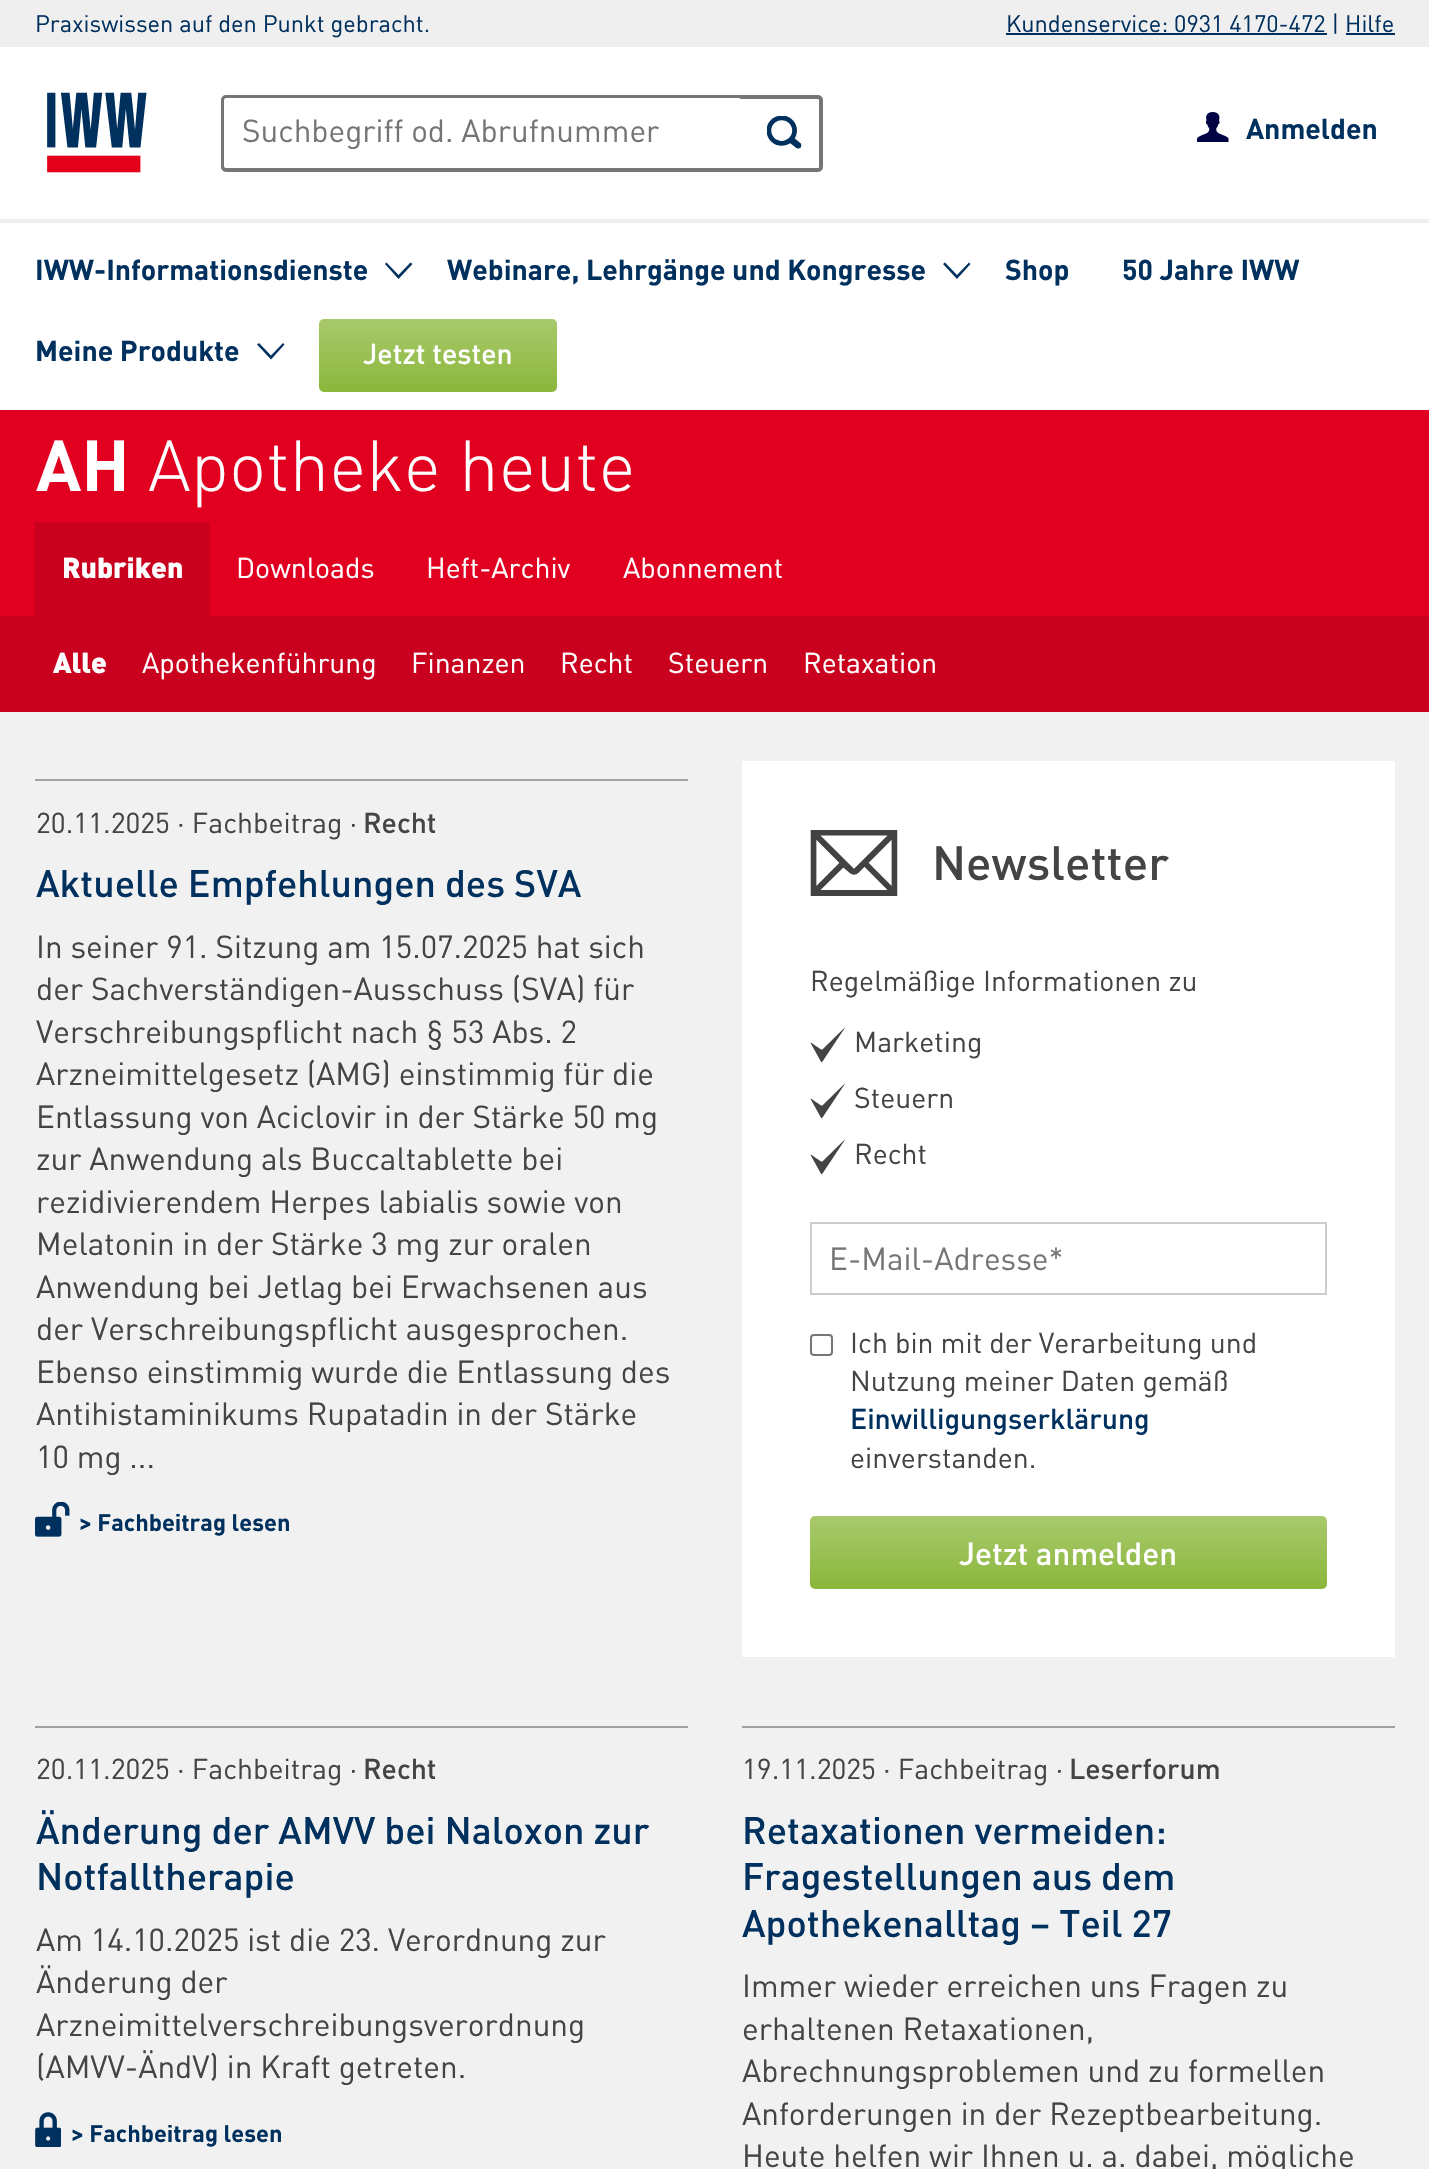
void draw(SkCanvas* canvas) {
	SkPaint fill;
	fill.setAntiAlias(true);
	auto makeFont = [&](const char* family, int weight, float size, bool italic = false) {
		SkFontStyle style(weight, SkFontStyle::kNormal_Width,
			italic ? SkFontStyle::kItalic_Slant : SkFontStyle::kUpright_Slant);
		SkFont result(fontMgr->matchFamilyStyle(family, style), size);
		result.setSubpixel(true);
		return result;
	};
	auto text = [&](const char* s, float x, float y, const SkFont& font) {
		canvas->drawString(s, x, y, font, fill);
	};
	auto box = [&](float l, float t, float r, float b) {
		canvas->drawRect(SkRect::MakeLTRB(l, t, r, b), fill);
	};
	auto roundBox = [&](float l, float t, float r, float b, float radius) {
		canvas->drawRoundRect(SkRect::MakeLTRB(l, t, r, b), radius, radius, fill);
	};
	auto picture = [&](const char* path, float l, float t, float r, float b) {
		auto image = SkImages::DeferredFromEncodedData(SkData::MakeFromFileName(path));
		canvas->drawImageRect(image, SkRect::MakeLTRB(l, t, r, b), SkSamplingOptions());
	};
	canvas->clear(0xFFFFFFFF);
	fill.setColor(0xFFEFEFEF);
	box(0, 0, 1429, 47);
	fill.setColor(0xFF00305E);
	box(1006, 33, 1327, 35);
	box(1346, 33, 1395, 35);
	fill.setColor(0xFFEFEFEF);
	box(0, 219, 1429, 223);
	picture("image0.png", 47, 92, 147, 173);
	fill.setStyle(SkPaint::kStroke_Style);
	fill.setStrokeWidth(4);
	fill.setColor(0xFF757575);
	canvas->drawRoundRect(SkRect::MakeLTRB(223, 97, 821, 170), 3, 3, fill);
	fill.setStyle(SkPaint::kFill_Style);
	fill.setColor(0xFFFFFFFF);
	canvas->drawPath(SkPathBuilder().moveTo(226, 98).lineTo(740, 98).lineTo(740, 168).lineTo(226, 168).cubicTo(225, 168, 224, 167, 224, 166).lineTo(224, 100).cubicTo(224, 99, 225, 98, 226, 98).close().detach(), fill);
	picture("image1.png", 767, 116, 802, 149);
	picture("image2.png", 1197, 112, 1229, 142);
	fill.setColor(0xFF00305E);
	canvas->drawPath(SkPathBuilder().moveTo(410.5f, 262.5f).lineTo(412.5f, 264).lineTo(398.5f, 279).lineTo(385, 264).lineTo(386.5f, 262.5f).lineTo(398.5f, 275).close().detach(), fill);
	canvas->drawPath(SkPathBuilder().moveTo(969, 262.5f).lineTo(970.5f, 264).lineTo(957, 279).lineTo(943, 264).lineTo(945, 262.5f).lineTo(957, 275).close().detach(), fill);
	canvas->drawPath(SkPathBuilder().moveTo(283, 343).lineTo(284.5f, 344.5f).lineTo(271, 359.5f).lineTo(257, 344.5f).lineTo(259, 343).lineTo(271, 355.5f).close().detach(), fill);
	{
		const SkColor colors[] = {0xFFA8C96C, 0xFF8BB73C};
		const float stops[] = {0, 1};
		const SkPoint ends[] = {{438, 319}, {438, 392}};
		fill.setShader(SkGradientShader::MakeLinear(ends, colors, stops, 2, SkTileMode::kClamp));
		fill.setAlpha(255);
	}
	roundBox(319, 319, 557, 392, 5);
	fill.setShader(nullptr);
	fill.setColor(0xFFE20020);
	box(0, 410, 1429, 616);
	fill.setColor(0xFFC9001E);
	box(35, 522, 210, 616);
	box(0, 616, 1429, 712);
	fill.setColor(0xFFF1F1F1);
	box(0, 712, 1429, 2169);
	fill.setColor(0xFFA1A1A1);
	box(35, 779, 688, 781);
	picture("image3.png", 35, 1502, 70, 1537);
	fill.setColor(0xFFFFFFFF);
	box(742, 761, 1395, 1657);
	picture("image4.png", 810, 830, 898, 896);
	picture("image5.png", 810, 1027, 845, 1062);
	picture("image5.png", 810, 1083, 845, 1118);
	picture("image5.png", 810, 1139, 845, 1174);
	fill.setStyle(SkPaint::kStroke_Style);
	fill.setStrokeWidth(2);
	fill.setColor(0xFFCCCCCC);
	canvas->drawRect(SkRect::MakeLTRB(811, 1223, 1326, 1294), fill);
	fill.setColor(0xFF767676);
	canvas->drawRoundRect(SkRect::MakeLTRB(811, 1335, 832, 1355), 3, 3, fill);
	fill.setStyle(SkPaint::kFill_Style);
	{
		const SkColor colors[] = {0xFFA8C96C, 0xFF8BB73C};
		const float stops[] = {0, 1};
		const SkPoint ends[] = {{1068, 1516}, {1068, 1589}};
		fill.setShader(SkGradientShader::MakeLinear(ends, colors, stops, 2, SkTileMode::kClamp));
		fill.setAlpha(255);
	}
	roundBox(810, 1516, 1327, 1589, 5);
	fill.setShader(nullptr);
	fill.setColor(0xFFA1A1A1);
	box(35, 1726, 688, 1728);
	picture("image6.png", 35, 2112, 61, 2147);
	box(742, 1726, 1395, 1728);
	auto font1 = makeFont("DIN", 400, 23.6f);
	fill.setColor(0xFF00305E);
	text("Praxiswissen auf den Punkt gebracht.", 35, 32, font1);
	text("Kundenservice: 0931 4170-472 | Hilfe", 1006, 32, font1);
	auto font2 = makeFont("DIN", 400, 31.5f);
	fill.setColor(0xFF757575);
	text("Suchbegriff od. Abrufnummer", 242, 142, font2);
	auto font3 = makeFont("DIN", 700, 28.4f);
	fill.setColor(0xFF00305E);
	text("Anmelden", 1246, 139, font3);
	text("IWW-Informationsdienste", 35, 280, font3);
	text("Webinare, Lehrgänge und Kongresse", 447, 280, font3);
	text("Shop", 1005, 280, font3);
	text("50 Jahre IWW", 1122, 280, font3);
	text("Meine Produkte", 35, 361, font3);
	auto font4 = makeFont("DIN", 500, 28.4f);
	fill.setColor(0xFFFFFFFF);
	text("Jetzt testen", 363, 364, font4);
	auto font5 = makeFont("DIN", 700, 71);
	text("AH", 36, 491, font5);
	auto font6 = makeFont("DIN", 300, 71);
	text("Apotheke heute", 148, 491, font6);
	auto font7 = makeFont("DIN", 900, 28.4f);
	text("Rubriken", 62, 578, font7);
	auto font8 = makeFont("DIN", 400, 28.4f);
	text("Downloads", 236, 578, font8);
	text("Heft-Archiv", 426, 578, font8);
	text("Abonnement", 623, 578, font8);
	text("Alle", 53, 673, font7);
	text("Apothekenführung", 142, 673, font8);
	text("Finanzen", 411, 673, font8);
	text("Recht", 560, 673, font8);
	text("Steuern", 668, 673, font8);
	text("Retaxation", 803, 673, font8);
	fill.setColor(0xFF444444);
	text("20.11.2025 · Fachbeitrag ·", 36, 833, font8);
	text("Recht", 363, 833, font4);
	auto font9 = makeFont("DIN", 500, 37.75f);
	fill.setColor(0xFF00305E);
	text("Aktuelle Empfehlungen des SVA", 36, 897, font9);
	fill.setColor(0xFF444444);
	text("In seiner 91. Sitzung am 15.07.2025 hat sich", 36, 958, font2);
	text("der Sachverständigen-Ausschuss (SVA) für", 36, 1000, font2);
	text("Verschreibungspflicht nach § 53 Abs. 2", 36, 1043, font2);
	text("Arzneimittelgesetz (AMG) einstimmig für die", 36, 1085, font2);
	text("Entlassung von Aciclovir in der Stärke 50 mg", 36, 1128, font2);
	text("zur Anwendung als Buccaltablette bei", 36, 1170, font2);
	text("rezidivierendem Herpes labialis sowie von", 36, 1213, font2);
	text("Melatonin in der Stärke 3 mg zur oralen", 36, 1255, font2);
	text("Anwendung bei Jetlag bei Erwachsenen aus", 36, 1298, font2);
	text("der Verschreibungspflicht ausgesprochen.", 36, 1340, font2);
	text("Ebenso einstimmig wurde die Entlassung des", 36, 1383, font2);
	text("Antihistaminikums Rupatadin in der Stärke", 36, 1425, font2);
	text("10 mg ...", 36, 1468, font2);
	auto font10 = makeFont("DIN", 700, 23.6f);
	fill.setColor(0xFF00305E);
	text("> Fachbeitrag lesen", 79, 1531, font10);
	auto font11 = makeFont("DIN", 500, 47.25f);
	fill.setColor(0xFF444444);
	text("Newsletter", 932, 880, font11);
	text("Regelmäßige Informationen zu", 810, 991, font8);
	text("Marketing", 854, 1052, font8);
	text("Steuern", 854, 1108, font8);
	text("Recht", 854, 1164, font8);
	fill.setColor(0xFF757575);
	text("E-Mail-Adresse*", 829, 1270, font2);
	fill.setColor(0xFF444444);
	text("Ich bin mit der Verarbeitung und", 850, 1353, font8);
	text("Nutzung meiner Daten gemäß", 850, 1391, font8);
	fill.setColor(0xFF00305E);
	text("Einwilligungserklärung", 850, 1429, font4);
	fill.setColor(0xFF444444);
	text("einverstanden.", 850, 1468, font8);
	auto font12 = makeFont("DIN", 500, 31.5f);
	fill.setColor(0xFFFFFFFF);
	text("Jetzt anmelden", 959, 1565, font12);
	fill.setColor(0xFF444444);
	text("20.11.2025 · Fachbeitrag ·", 36, 1779, font8);
	text("Recht", 363, 1779, font4);
	fill.setColor(0xFF00305E);
	text("Änderung der AMVV bei Naloxon zur", 36, 1844, font9);
	text("Notfalltherapie", 36, 1890, font9);
	fill.setColor(0xFF444444);
	text("Am 14.10.2025 ist die 23. Verordnung zur", 36, 1951, font2);
	text("Änderung der", 36, 1993, font2);
	text("Arzneimittelverschreibungsverordnung", 36, 2036, font2);
	text("(AMVV-ÄndV) in Kraft getreten.", 36, 2078, font2);
	fill.setColor(0xFF00305E);
	text("> Fachbeitrag lesen", 71, 2142, font10);
	fill.setColor(0xFF444444);
	text("19.11.2025 · Fachbeitrag ·", 742, 1779, font8);
	text("Leserforum", 1069, 1779, font4);
	fill.setColor(0xFF00305E);
	text("Retaxationen vermeiden:", 742, 1844, font9);
	text("Fragestellungen aus dem", 742, 1890, font9);
	text("Apothekenalltag – Teil 27", 742, 1937, font9);
	fill.setColor(0xFF444444);
	text("Immer wieder erreichen uns Fragen zu", 742, 1997, font2);
	text("erhaltenen Retaxationen,", 742, 2040, font2);
	text("Abrechnungsproblemen und zu formellen", 742, 2082, font2);
	text("Anforderungen in der Rezeptbearbeitung.", 742, 2125, font2);
	text("Heute helfen wir Ihnen u. a. dabei, mögliche", 742, 2167, font2);
}
